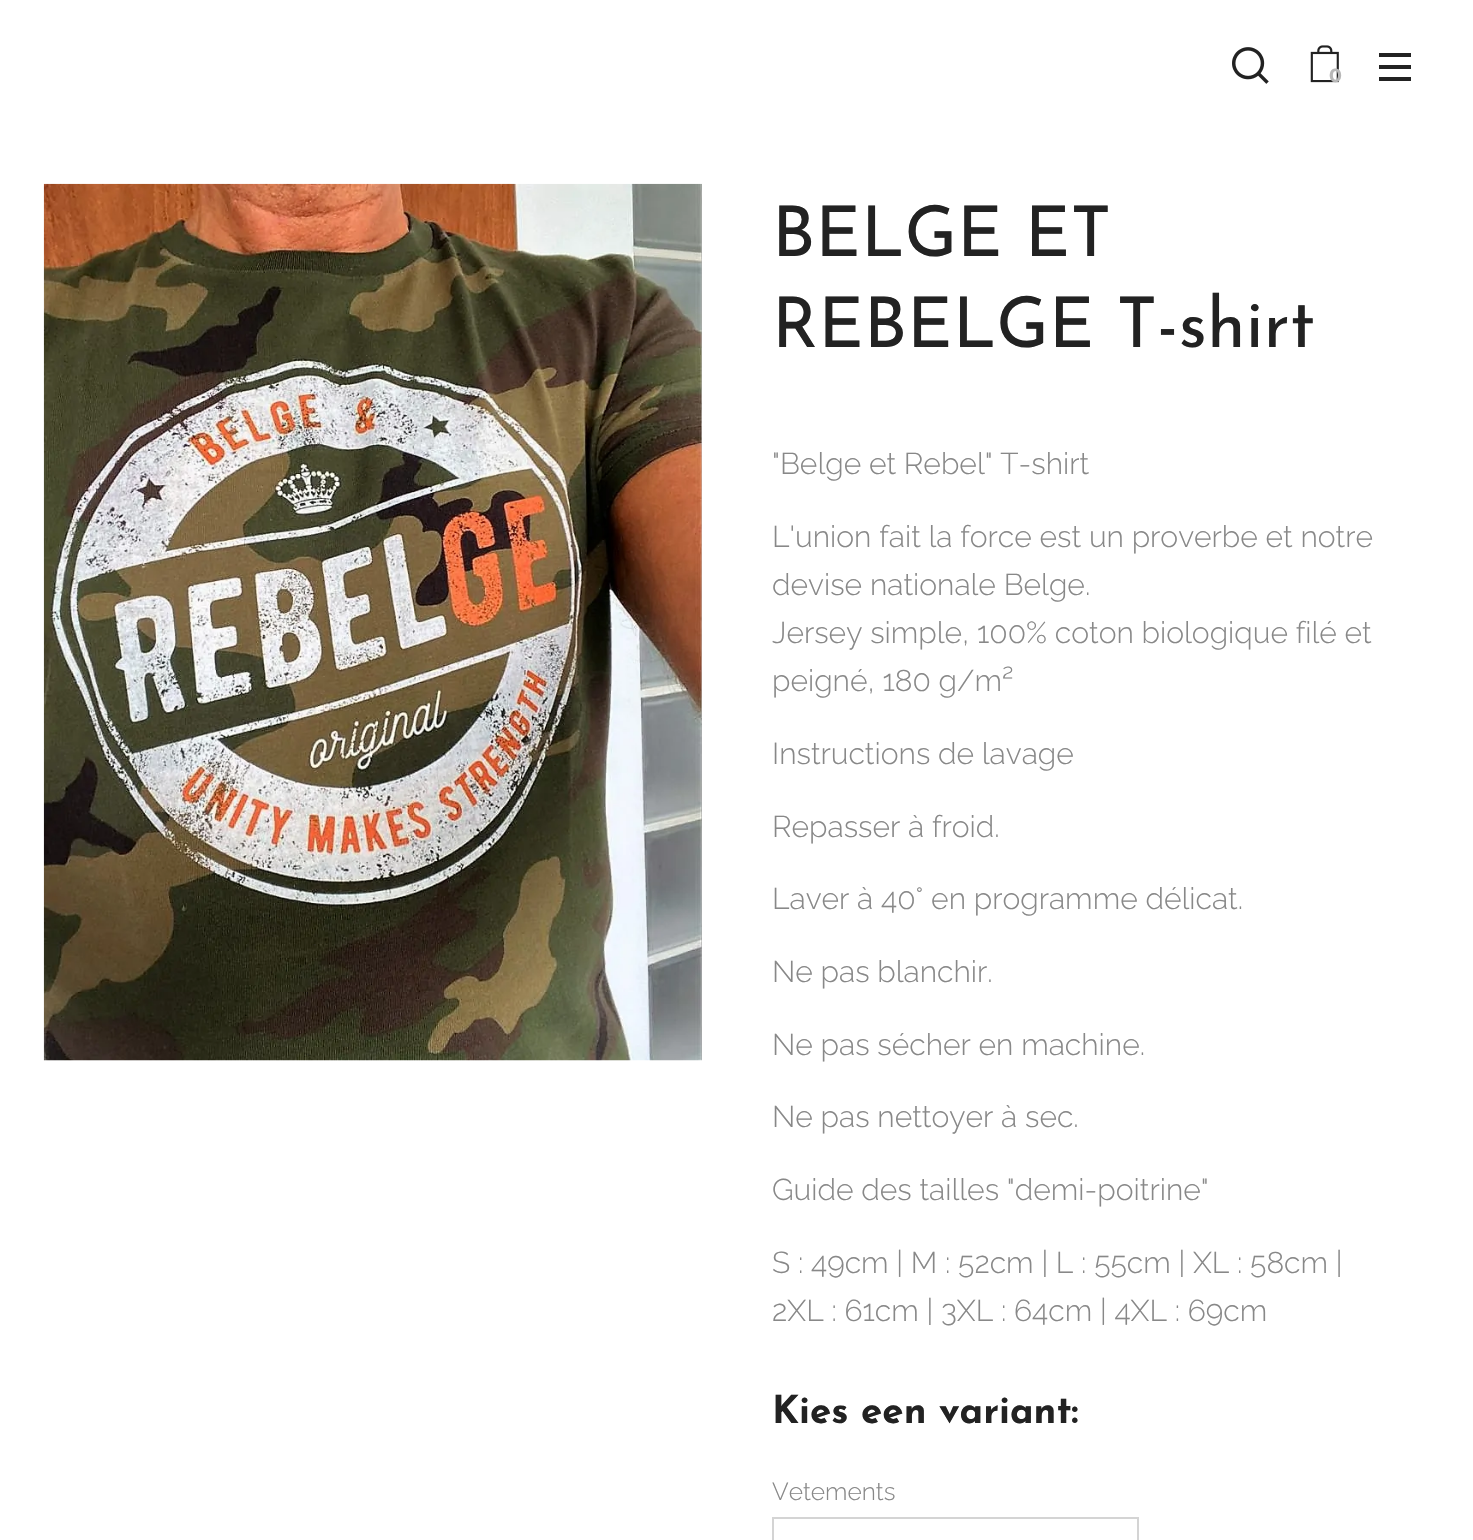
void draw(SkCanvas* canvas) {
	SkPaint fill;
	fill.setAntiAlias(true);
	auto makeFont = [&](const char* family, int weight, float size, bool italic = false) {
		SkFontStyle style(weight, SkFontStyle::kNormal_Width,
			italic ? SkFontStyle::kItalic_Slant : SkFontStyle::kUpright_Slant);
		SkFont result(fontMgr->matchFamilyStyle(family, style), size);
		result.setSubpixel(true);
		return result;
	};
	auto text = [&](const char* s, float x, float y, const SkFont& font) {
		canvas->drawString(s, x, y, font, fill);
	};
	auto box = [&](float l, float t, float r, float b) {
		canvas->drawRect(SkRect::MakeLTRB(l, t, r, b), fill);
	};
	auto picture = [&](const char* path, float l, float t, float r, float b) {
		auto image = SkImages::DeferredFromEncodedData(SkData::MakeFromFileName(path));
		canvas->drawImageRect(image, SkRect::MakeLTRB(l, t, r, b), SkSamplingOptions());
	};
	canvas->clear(0xFFFFFFFF);
	picture("image0.png", 1232, 47, 1269, 84);
	picture("image1.png", 1310, 45, 1339, 83);
	fill.setColor(0xFF222222);
	box(1379, 65, 1411, 69);
	box(1379, 53, 1411, 57);
	box(1379, 77, 1411, 81);
	picture("image2.png", 43, 183, 702, 1061);
	fill.setStyle(SkPaint::kStroke_Style);
	fill.setStrokeWidth(2);
	fill.setColor(0xFFD4D4D4);
	canvas->drawRect(SkRect::MakeLTRB(773, 1518, 1138, 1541), fill);
	auto font1 = makeFont("Montserrat", 700, 19);
	fill.setStyle(SkPaint::kFill_Style);
	fill.setColor(0xFFB8B8B8);
	text("0", 1329, 82, font1);
	auto font2 = makeFont("Josefin Sans", 400, 70);
	fill.setColor(0xFF222222);
	text("BELGE ET", 772, 256, font2);
	text("REBELGE T-shirt", 772, 347, font2);
	auto font3 = makeFont("Raleway", 300, 30.1f);
	fill.setColor(0xFF888888);
	text("\"Belge et Rebel\" T-shirt", 772, 474, font3);
	text("L'union fait la force est un proverbe et notre", 772, 547, font3);
	text("devise nationale Belge.", 772, 595, font3);
	text("Jersey simple, 100% coton biologique filé et", 772, 643, font3);
	text("peigné, 180 g/m²", 772, 691, font3);
	text("Instructions de lavage", 772, 764, font3);
	text("Repasser à froid.", 772, 837, font3);
	text("Laver à 40° en programme délicat.", 772, 909, font3);
	text("Ne pas blanchir.", 772, 982, font3);
	text("Ne pas sécher en machine.", 772, 1055, font3);
	text("Ne pas nettoyer à sec.", 772, 1127, font3);
	text("Guide des tailles \"demi-poitrine\"", 772, 1200, font3);
	text("S : 49cm | M : 52cm | L : 55cm | XL : 58cm |", 772, 1273, font3);
	text("2XL : 61cm | 3XL : 64cm | 4XL : 69cm", 772, 1321, font3);
	auto font4 = makeFont("Josefin Sans", 700, 38.5f);
	fill.setColor(0xFF222222);
	text("Kies een variant:", 772, 1423, font4);
	auto font5 = makeFont("Raleway", 300, 24.5f);
	fill.setColor(0xFF888888);
	text("Vetements", 772, 1500, font5);
}
